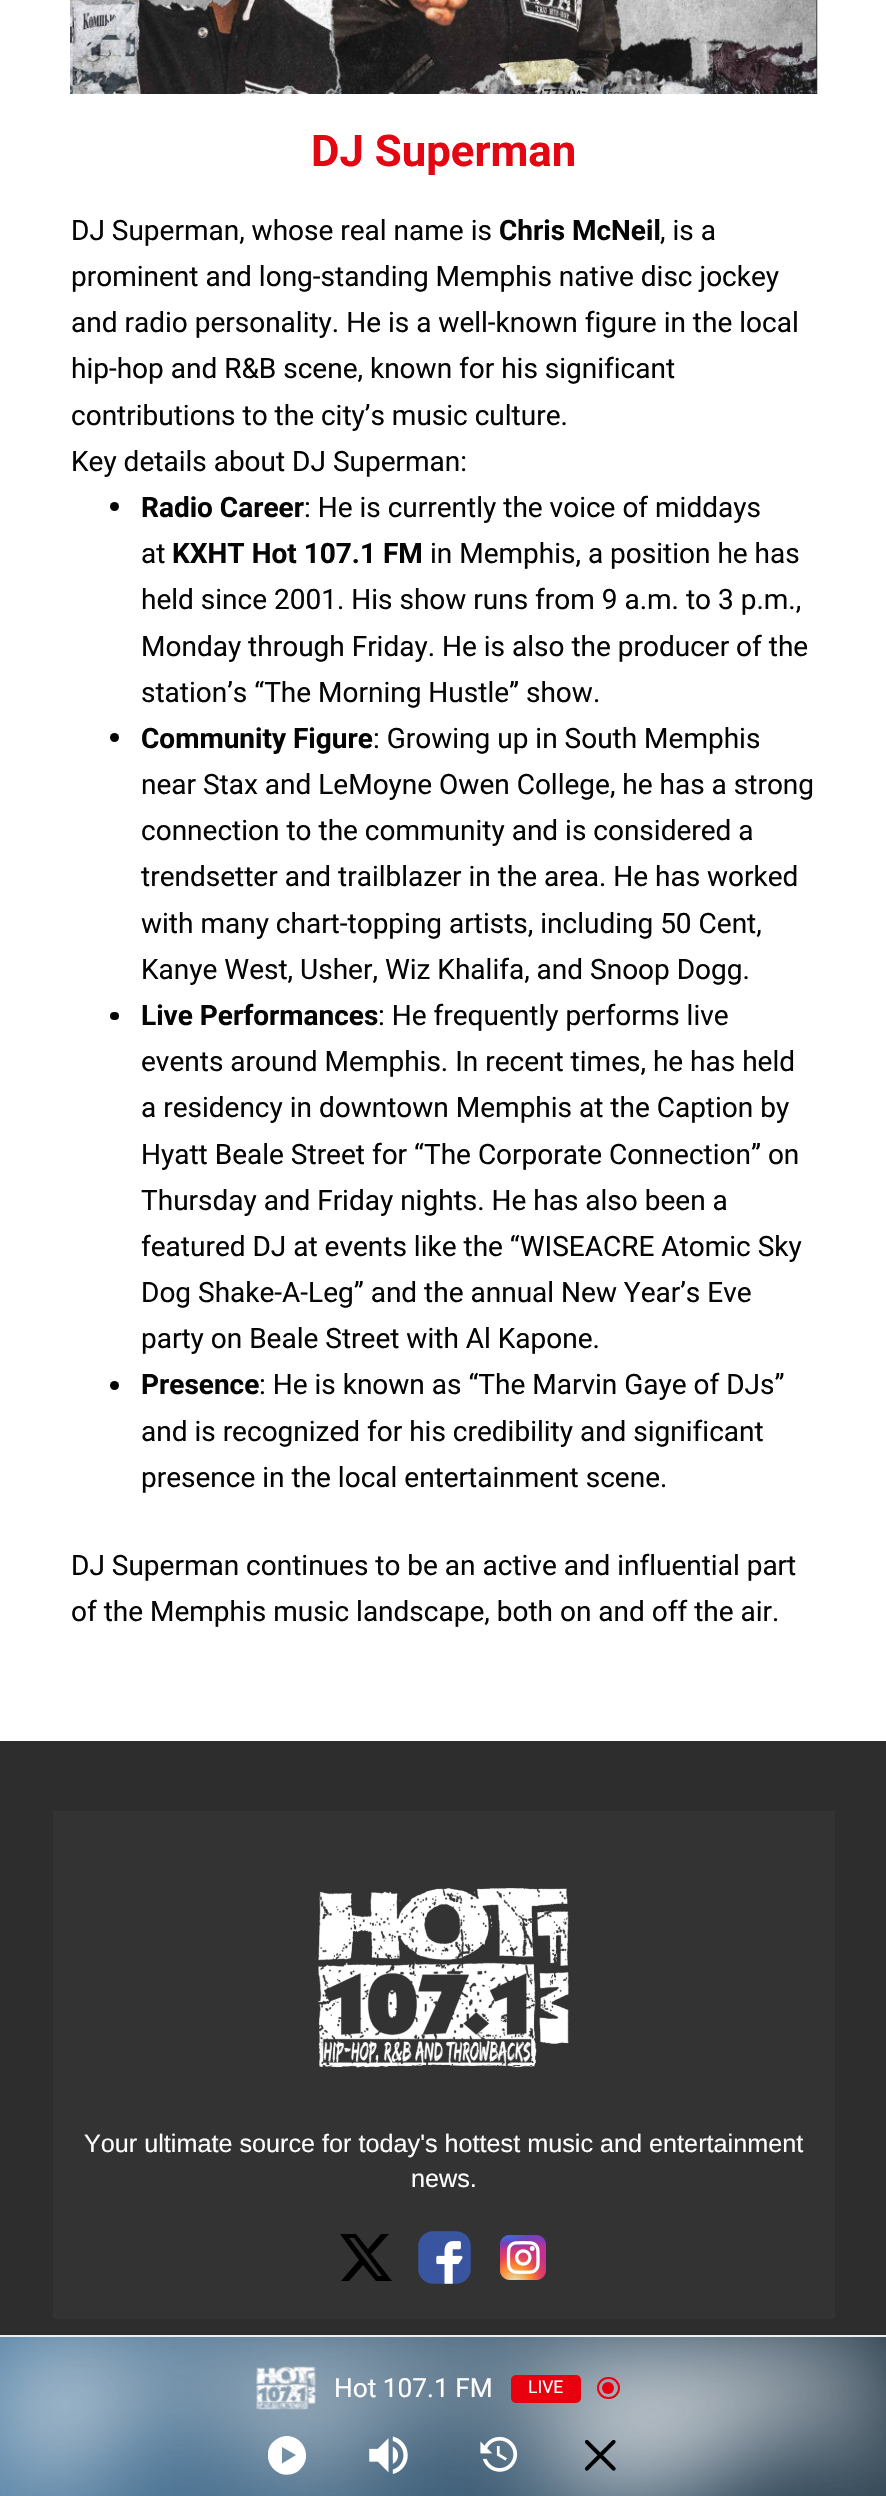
void draw(SkCanvas* canvas) {
	SkPaint fill;
	fill.setAntiAlias(true);
	auto makeFont = [&](const char* family, int weight, float size, bool italic = false) {
		SkFontStyle style(weight, SkFontStyle::kNormal_Width,
			italic ? SkFontStyle::kItalic_Slant : SkFontStyle::kUpright_Slant);
		SkFont result(fontMgr->matchFamilyStyle(family, style), size);
		result.setSubpixel(true);
		return result;
	};
	auto text = [&](const char* s, float x, float y, const SkFont& font) {
		canvas->drawString(s, x, y, font, fill);
	};
	auto box = [&](float l, float t, float r, float b) {
		canvas->drawRect(SkRect::MakeLTRB(l, t, r, b), fill);
	};
	auto roundBox = [&](float l, float t, float r, float b, float radius) {
		canvas->drawRoundRect(SkRect::MakeLTRB(l, t, r, b), radius, radius, fill);
	};
	auto picture = [&](const char* path, float l, float t, float r, float b) {
		auto image = SkImages::DeferredFromEncodedData(SkData::MakeFromFileName(path));
		canvas->drawImageRect(image, SkRect::MakeLTRB(l, t, r, b), SkSamplingOptions());
	};
	canvas->clear(0xFFFFFFFF);
	picture("image0.png", 70, 0, 818, 94);
	fill.setColor(0xFF050505);
	canvas->drawCircle(114.5f, 506.5f, 4.5f, fill);
	canvas->drawCircle(114.5f, 737.5f, 4.5f, fill);
	roundBox(110, 1012, 119, 1020, 4);
	canvas->drawCircle(114.5f, 1385.5f, 4.5f, fill);
	fill.setColor(0xFF2D2D2D);
	box(0, 1741, 886, 2335);
	fill.setColor(0xFF333333);
	box(53, 1811, 835, 2319);
	picture("image1.png", 318, 1888, 569, 2068);
	fill.setColor(0xFF000000);
	canvas->drawPath(SkPathBuilder().moveTo(381, 2234).lineTo(389, 2234).lineTo(371, 2254).lineTo(392, 2281).lineTo(376, 2281).lineTo(363, 2265).lineTo(349, 2281).lineTo(341, 2281).lineTo(359, 2260).lineTo(340, 2234).lineTo(356, 2234).lineTo(368, 2249).close().moveTo(378, 2276).lineTo(382, 2276).lineTo(354, 2238).lineTo(349, 2238).close().detach(), fill);
	picture("image2.png", 418, 2231, 471, 2284);
	picture("image3.png", 500, 2235, 546, 2280);
	{
		const SkColor colors[] = {0xFF243949, 0xFF517FA4};
		const float stops[] = {0, 1};
		const SkPoint ends[] = {{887, 2417}, {0, 2417}};
		fill.setShader(SkGradientShader::MakeLinear(ends, colors, stops, 2, SkTileMode::kClamp));
		fill.setAlpha(255);
	}
	box(0, 2337, 886, 2496);
	fill.setShader(nullptr);
	fill.setColor(0xFFEDEDED);
	box(0, 2335, 886, 2337);
	picture("image4.png", 0, 2336, 886, 2496);
	picture("image5.png", 256, 2366, 316, 2410);
	fill.setColor(0xFFE8000E);
	roundBox(511, 2375, 581, 2403, 5);
	canvas->drawCircle(608, 2388, 6, fill);
	fill.setStyle(SkPaint::kStroke_Style);
	fill.setStrokeWidth(2);
	canvas->drawRoundRect(SkRect::MakeLTRB(598, 2378, 619, 2398), 10, 10, fill);
	canvas->save();
	canvas->clipRect(SkRect::MakeLTRB(268, 2436, 306, 2475));
	fill.setStyle(SkPaint::kFill_Style);
	fill.setColor(0xFFFFFFFF);
	canvas->drawPath(SkPathBuilder().moveTo(285, 2436).cubicTo(281, 2436.5f, 277, 2438.5f, 273.5f, 2441.5f).cubicTo(260.5f, 2454, 271, 2476.5f, 289.5f, 2474.5f).cubicTo(293, 2474, 297, 2472.5f, 299.5f, 2470).cubicTo(313.5f, 2457.5f, 303.5f, 2434.5f, 285, 2436).close().moveTo(289, 2451).lineTo(296, 2455).lineTo(282, 2463.5f).lineTo(282, 2447).close().detach(), fill);
	canvas->restore();
	picture("image6.png", 369, 2436, 408, 2474);
	picture("image7.png", 480, 2436, 518, 2472);
	picture("image8.png", 585, 2440, 616, 2471);
	auto font1 = makeFont("Roboto", 700, 43.75f);
	fill.setColor(0xFFE30613);
	text("DJ Superman", 311, 166, font1);
	auto font2 = makeFont("Roboto", 400, 28);
	fill.setColor(0xFF050505);
	text("DJ Superman, whose real name is", 71, 240, font2);
	auto font3 = makeFont("Roboto", 700, 28);
	text("Chris McNeil", 499, 240, font3);
	text(", is a", 660, 240, font2);
	text("prominent and long-standing Memphis native disc jockey", 71, 286, font2);
	text("and radio personality. He is a well-known figure in the local", 71, 332, font2);
	text("hip-hop and R&B scene, known for his significant", 71, 378, font2);
	text("contributions to the city’s music culture.", 71, 425, font2);
	text("Key details about DJ Superman:", 71, 471, font2);
	text("Radio Career", 141, 517, font3);
	text(": He is currently the voice of middays", 304, 517, font2);
	text("at", 141, 563, font2);
	text("KXHT Hot 107.1 FM", 172, 563, font3);
	text("in Memphis, a position he has", 430, 563, font2);
	text("held since 2001. His show runs from 9 a.m. to 3 p.m.,", 141, 609, font2);
	text("Monday through Friday. He is also the producer of the", 141, 656, font2);
	text("station’s “The Morning Hustle” show.", 141, 702, font2);
	text("Community Figure", 141, 748, font3);
	text(": Growing up in South Memphis", 373, 748, font2);
	text("near Stax and LeMoyne Owen College, he has a strong", 141, 794, font2);
	text("connection to the community and is considered a", 141, 840, font2);
	text("trendsetter and trailblazer in the area. He has worked", 141, 886, font2);
	text("with many chart-topping artists, including 50 Cent,", 141, 933, font2);
	text("Kanye West, Usher, Wiz Khalifa, and Snoop Dogg.", 141, 979, font2);
	text("Live Performances", 141, 1025, font3);
	text(": He frequently performs live", 378, 1025, font2);
	text("events around Memphis. In recent times, he has held", 141, 1071, font2);
	text("a residency in downtown Memphis at the Caption by", 141, 1117, font2);
	text("Hyatt Beale Street for “The Corporate Connection” on", 141, 1164, font2);
	text("Thursday and Friday nights. He has also been a", 141, 1210, font2);
	text("featured DJ at events like the “WISEACRE Atomic Sky", 141, 1256, font2);
	text("Dog Shake-A-Leg” and the annual New Year’s Eve", 141, 1302, font2);
	text("party on Beale Street with Al Kapone.", 141, 1348, font2);
	text("Presence", 141, 1394, font3);
	text(": He is known as “The Marvin Gaye of DJs”", 259, 1394, font2);
	text("and is recognized for his credibility and significant", 141, 1441, font2);
	text("presence in the local entertainment scene.", 141, 1487, font2);
	text("DJ Superman continues to be an active and influential part", 71, 1575, font2);
	text("of the Memphis music landscape, both on and off the air.", 71, 1621, font2);
	auto font4 = makeFont("Liberation Sans", 400, 25.2f);
	fill.setColor(0xFFFFFFFF);
	text("Your ultimate source for today's hottest music and entertainment", 84, 2152, font4);
	text("news.", 411, 2187, font4);
	auto font5 = makeFont("Roboto", 400, 26.25f);
	text("Hot 107.1 FM", 334, 2397, font5);
	auto font6 = makeFont("Roboto", 400, 17.5f);
	text("LIVE", 528, 2393, font6);
}
